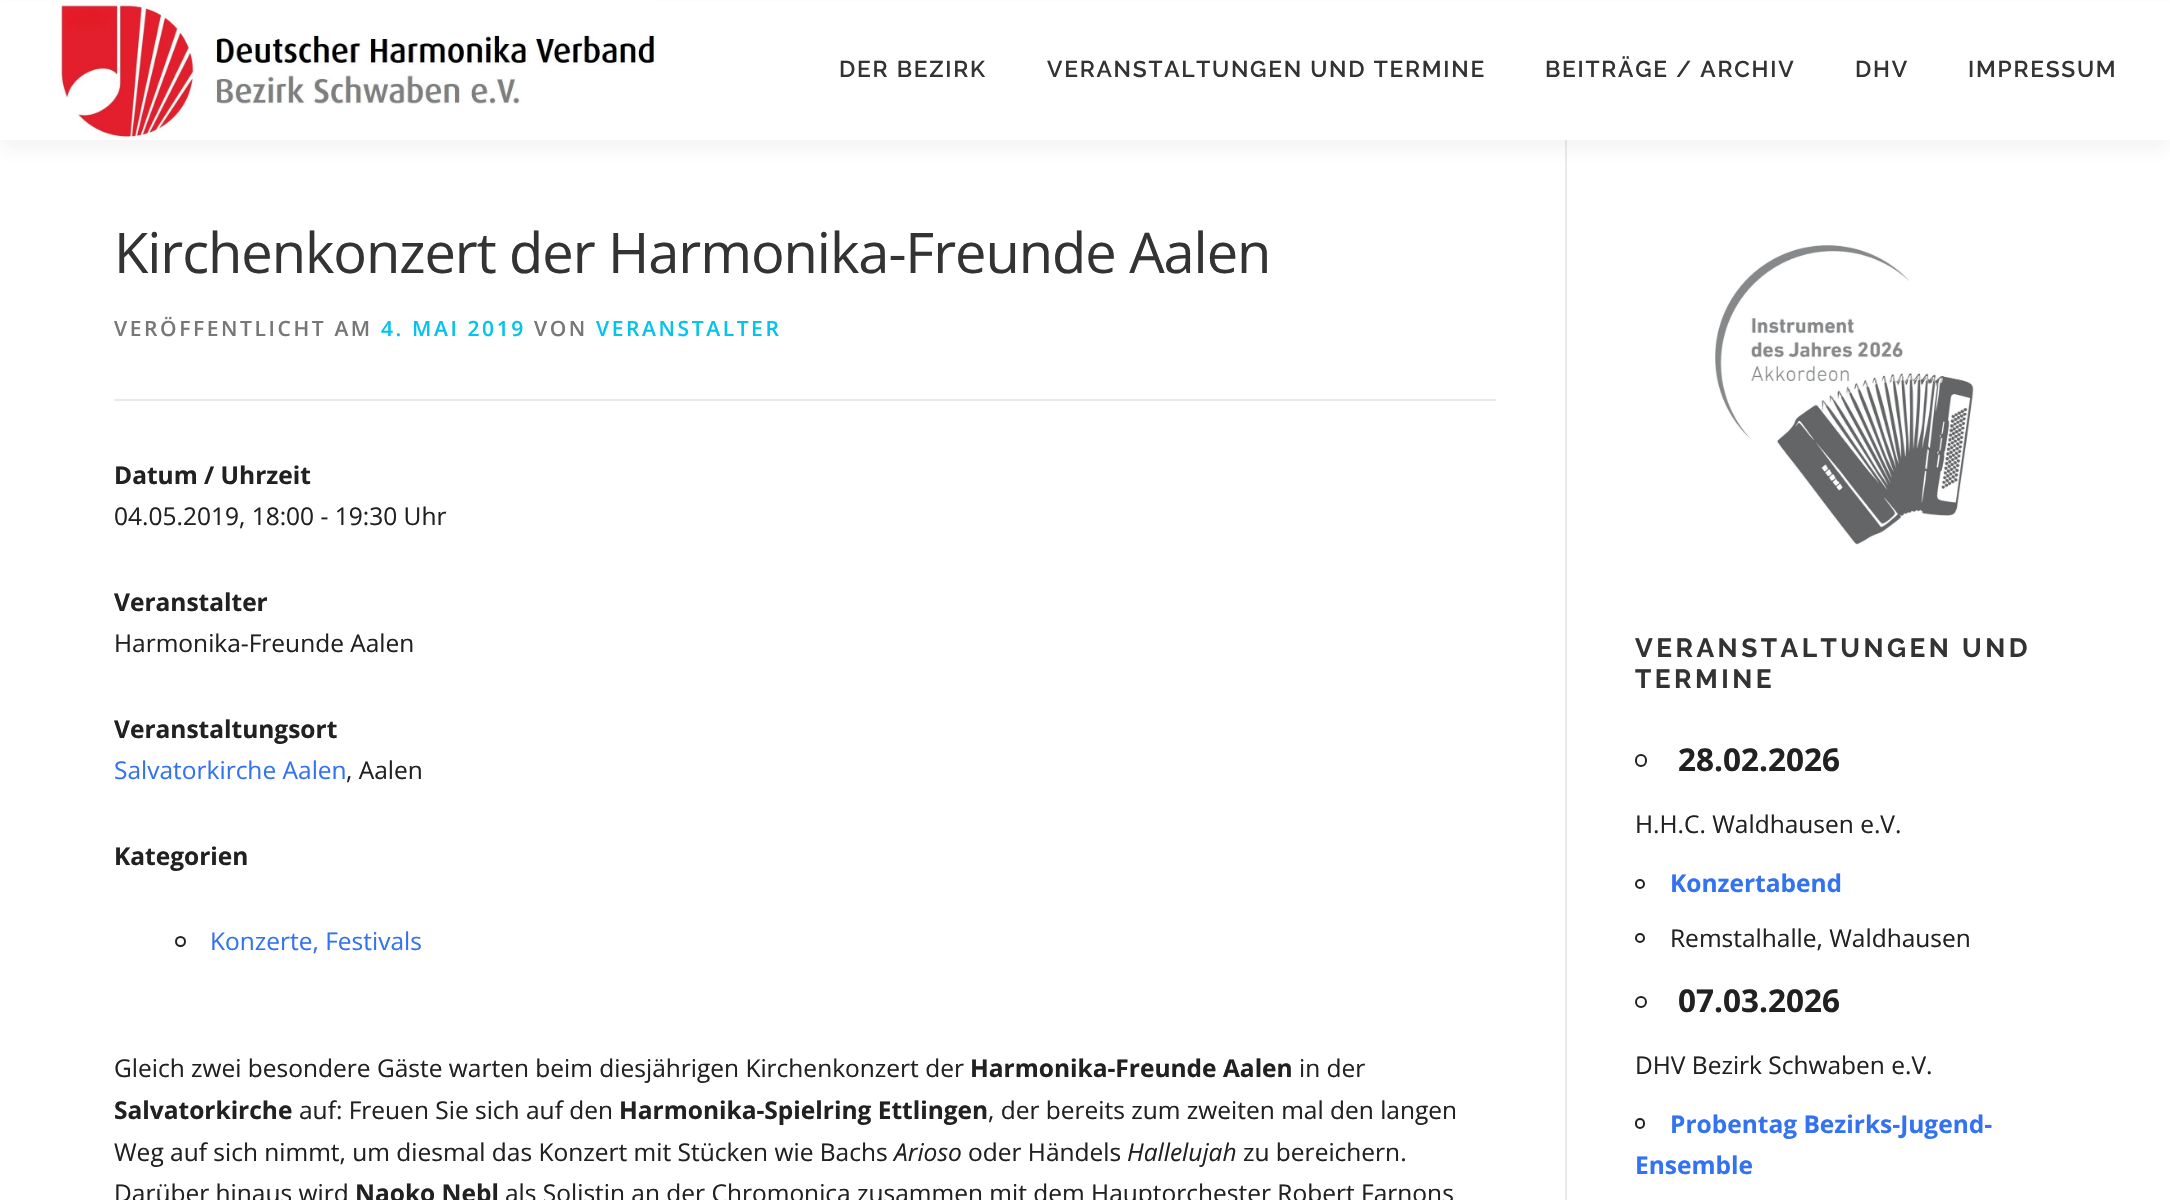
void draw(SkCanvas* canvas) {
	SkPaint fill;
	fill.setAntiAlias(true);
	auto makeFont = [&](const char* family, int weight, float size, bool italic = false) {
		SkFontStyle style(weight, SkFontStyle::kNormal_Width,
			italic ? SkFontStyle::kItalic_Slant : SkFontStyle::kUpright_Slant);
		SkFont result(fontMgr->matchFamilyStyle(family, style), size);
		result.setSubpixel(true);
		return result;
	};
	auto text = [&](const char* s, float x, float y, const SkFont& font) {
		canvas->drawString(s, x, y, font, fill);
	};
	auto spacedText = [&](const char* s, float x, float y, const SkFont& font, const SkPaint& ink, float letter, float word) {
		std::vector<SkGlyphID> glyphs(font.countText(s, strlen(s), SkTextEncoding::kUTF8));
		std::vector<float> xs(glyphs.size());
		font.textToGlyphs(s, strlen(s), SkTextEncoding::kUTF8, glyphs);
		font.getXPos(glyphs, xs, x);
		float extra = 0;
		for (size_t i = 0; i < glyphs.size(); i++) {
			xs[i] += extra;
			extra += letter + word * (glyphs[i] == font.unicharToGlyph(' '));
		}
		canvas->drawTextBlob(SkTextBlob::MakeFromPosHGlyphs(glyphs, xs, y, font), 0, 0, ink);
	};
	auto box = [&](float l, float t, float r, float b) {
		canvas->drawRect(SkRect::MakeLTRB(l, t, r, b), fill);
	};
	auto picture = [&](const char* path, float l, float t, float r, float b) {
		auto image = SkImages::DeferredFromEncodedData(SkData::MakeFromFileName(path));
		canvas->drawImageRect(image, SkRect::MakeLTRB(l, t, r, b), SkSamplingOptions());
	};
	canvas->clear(0xFFFFFFFF);
	fill.setColor(0xFFE9E9E9);
	box(1565, 140, 1567, 1200);
	fill.setColor(0x0F323232);
	fill.setMaskFilter(SkMaskFilter::MakeBlur(kNormal_SkBlurStyle, 9));
	canvas->drawRect(SkRect::MakeLTRB(0, 9, 2170, 149), fill);
	fill.setMaskFilter(nullptr);
	fill.setColor(0xFFFFFFFF);
	box(0, 2, 2170, 140);
	picture("image0.png", 59, 0, 656, 138);
	fill.setColor(0xFFE9E9E9);
	box(114, 399, 1496, 401);
	fill.setStyle(SkPaint::kStroke_Style);
	fill.setStrokeWidth(2);
	fill.setColor(0xFF212121);
	canvas->drawCircle(180.5f, 941.5f, 4.5f, fill);
	picture("image1.png", 1715, 245, 1974, 545);
	canvas->drawRoundRect(SkRect::MakeLTRB(1636, 755, 1646, 766), 5, 5, fill);
	canvas->drawCircle(1640, 884, 4, fill);
	canvas->drawCircle(1640, 938, 4, fill);
	canvas->drawCircle(1641, 1002, 5, fill);
	canvas->drawRoundRect(SkRect::MakeLTRB(1636, 1119, 1644, 1128), 4, 4, fill);
	auto font1 = makeFont("Raleway", 600, 22.75f);
	fill.setStyle(SkPaint::kFill_Style);
	fill.setColor(0xFF333333);
	spacedText("DER BEZIRK", 839, 77, font1, fill, 1.75f, 0);
	spacedText("VERANSTALTUNGEN UND TERMINE", 1047, 77, font1, fill, 1.75f, 0);
	spacedText("BEITRÄGE / ARCHIV", 1545, 77, font1, fill, 1.75f, 0);
	spacedText("DHV", 1855, 77, font1, fill, 1.75f, 0);
	spacedText("IMPRESSUM", 1968, 77, font1, fill, 1.75f, 0);
	auto font2 = makeFont("Open Sans", 400, 56);
	spacedText("Kirchenkonzert der Harmonika-Freunde Aalen", 114, 273, font2, fill, -1.05f, 0);
	auto font3 = makeFont("Open Sans", 600, 21);
	fill.setColor(0xFF777777);
	spacedText("VERÖFFENTLICHT AM", 114, 336, font3, fill, 2.6f, 0);
	fill.setColor(0xFF03C4EB);
	spacedText("4. MAI 2019", 381, 336, font3, fill, 2.6f, 0);
	fill.setColor(0xFF777777);
	spacedText("VON", 534, 336, font3, fill, 2.6f, 0);
	fill.setColor(0xFF03C4EB);
	spacedText("VERANSTALTER", 596, 336, font3, fill, 2.6f, 0);
	auto font4 = makeFont("Open Sans", 700, 24.5f);
	fill.setColor(0xFF212121);
	text("Datum / Uhrzeit", 114, 484, font4);
	auto font5 = makeFont("Open Sans", 400, 24.5f);
	text("04.05.2019, 18:00 - 19:30 Uhr", 114, 525, font5);
	text("Veranstalter", 114, 611, font4);
	text("Harmonika-Freunde Aalen", 114, 652, font5);
	text("Veranstaltungsort", 114, 738, font4);
	fill.setColor(0xFF3372F0);
	text("Salvatorkirche Aalen", 114, 779, font5);
	fill.setColor(0xFF212121);
	text(", Aalen", 346, 779, font5);
	text("Kategorien", 114, 865, font4);
	fill.setColor(0xFF3372F0);
	text("Konzerte, Festivals", 210, 950, font5);
	fill.setColor(0xFF212121);
	text("Gleich zwei besondere Gäste warten beim diesjährigen Kirchenkonzert der", 114, 1077, font5);
	text("Harmonika-Freunde Aalen", 970, 1077, font4);
	text("in der", 1299, 1077, font5);
	text("Salvatorkirche", 114, 1119, font4);
	text("auf: Freuen Sie sich auf den", 299, 1119, font5);
	text("Harmonika-Spielring Ettlingen", 619, 1119, font4);
	text(", der bereits zum zweiten mal den langen", 988, 1119, font5);
	text("Weg auf sich nimmt, um diesmal das Konzert mit Stücken wie Bachs", 114, 1161, font5);
	auto font6 = makeFont("Open Sans", 400, 24.5f, true);
	text("Arioso", 894, 1161, font6);
	text("oder Händels", 968, 1161, font5);
	text("Hallelujah", 1127, 1161, font6);
	text("zu bereichern.", 1243, 1161, font5);
	text("Darüber hinaus wird", 114, 1202, font5);
	text("Naoko Nebl", 355, 1202, font4);
	text("als Solistin an der Chromonica zusammen mit dem Hauptorchester Robert Farnons", 505, 1202, font5);
	auto font7 = makeFont("Raleway", 700, 26.25f);
	fill.setColor(0xFF333333);
	spacedText("VERANSTALTUNGEN UND", 1635, 657, font7, fill, 3.5f, 0);
	spacedText("TERMINE", 1635, 688, font7, fill, 3.5f, 0);
	auto font8 = makeFont("Open Sans", 700, 31.5f);
	fill.setColor(0xFF212121);
	text("28.02.2026", 1678, 771, font8);
	text("H.H.C. Waldhausen e.V.", 1635, 833, font5);
	fill.setColor(0xFF3372F0);
	text("Konzertabend", 1670, 892, font4);
	fill.setColor(0xFF212121);
	text("Remstalhalle, Waldhausen", 1670, 947, font5);
	text("07.03.2026", 1678, 1012, font8);
	text("DHV Bezirk Schwaben e.V.", 1635, 1074, font5);
	fill.setColor(0xFF3372F0);
	text("Probentag Bezirks-Jugend-", 1670, 1133, font4);
	text("Ensemble", 1635, 1174, font4);
}
